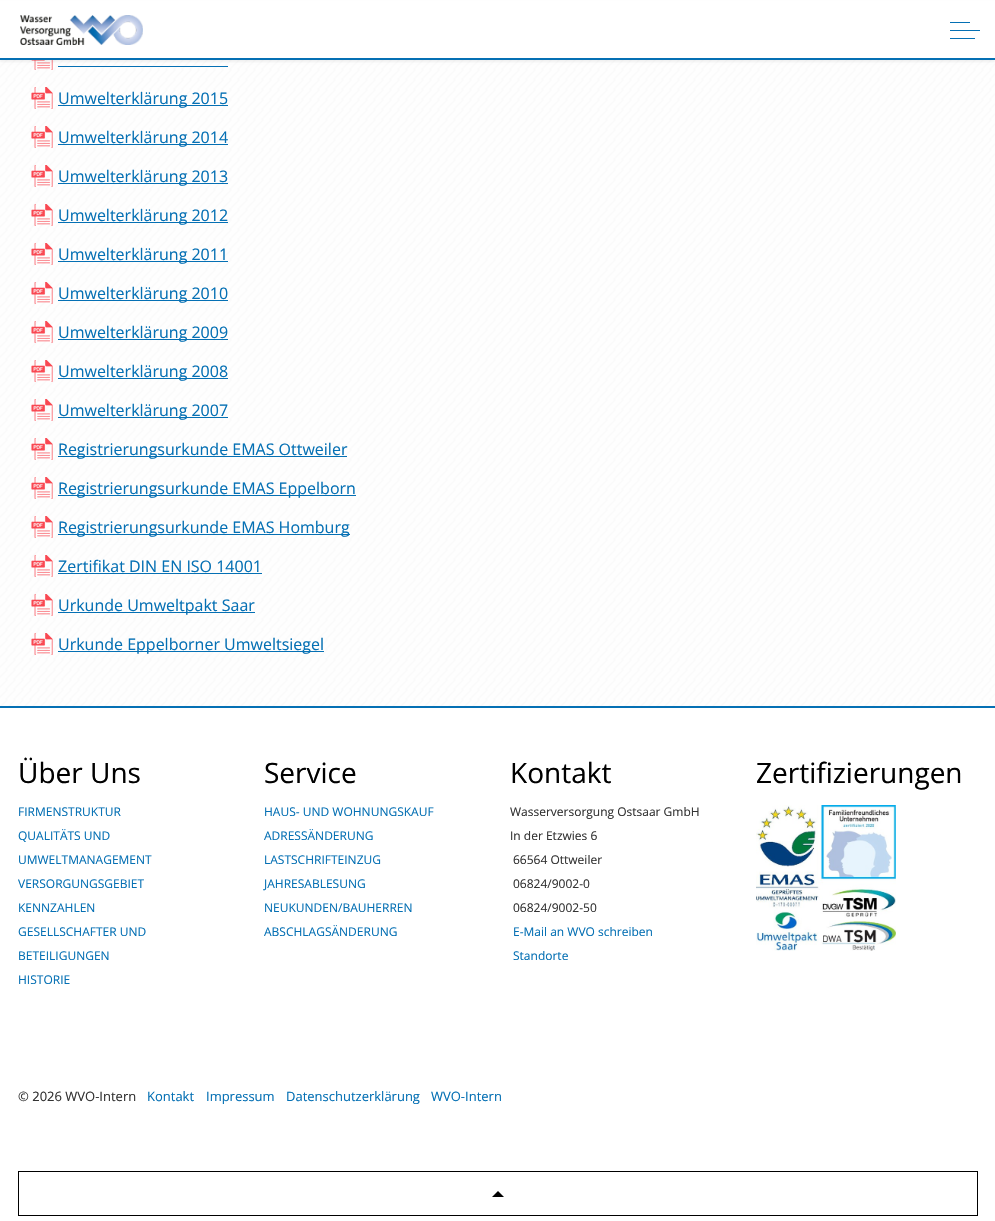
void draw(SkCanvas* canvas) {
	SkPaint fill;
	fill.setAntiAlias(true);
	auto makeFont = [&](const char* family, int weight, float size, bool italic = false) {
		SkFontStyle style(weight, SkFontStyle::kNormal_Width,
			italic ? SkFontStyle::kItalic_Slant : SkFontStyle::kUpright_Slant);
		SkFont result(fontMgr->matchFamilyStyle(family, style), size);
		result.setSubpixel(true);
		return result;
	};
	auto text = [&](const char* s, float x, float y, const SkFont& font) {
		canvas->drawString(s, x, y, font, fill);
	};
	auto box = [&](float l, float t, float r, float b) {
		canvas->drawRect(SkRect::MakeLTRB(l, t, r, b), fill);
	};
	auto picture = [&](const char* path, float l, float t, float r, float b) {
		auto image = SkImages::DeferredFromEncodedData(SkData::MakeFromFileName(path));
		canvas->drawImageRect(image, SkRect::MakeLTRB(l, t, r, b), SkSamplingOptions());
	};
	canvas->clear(0xFFFFFFFF);
	picture("image1.png", 0, 60, 995, 706);
	picture("image2.png", 31, 60, 53, 70);
	fill.setColor(0x0D000000);
	fill.setMaskFilter(SkMaskFilter::MakeBlur(kNormal_SkBlurStyle, 1));
	canvas->drawRect(SkRect::MakeLTRB(0, 2, 995, 62), fill);
	fill.setMaskFilter(nullptr);
	fill.setColor(0xFFFFFFFF);
	box(0, 1, 995, 58);
	fill.setColor(0xFF0570B4);
	box(0, 58, 995, 60);
	picture("image0.png", 20, 15, 143, 45);
	box(950, 30, 980, 31);
	box(950, 22, 970, 23);
	box(950, 38, 975, 39);
	box(58, 66, 228, 67);
	picture("image3.png", 31, 87, 53, 109);
	box(58, 105, 228, 106);
	picture("image4.png", 31, 126, 53, 148);
	box(58, 144, 228, 145);
	picture("image5.png", 31, 165, 53, 187);
	box(58, 183, 228, 184);
	picture("image6.png", 31, 204, 53, 226);
	box(58, 222, 228, 223);
	picture("image7.png", 31, 243, 53, 265);
	box(58, 261, 228, 262);
	picture("image8.png", 31, 282, 53, 304);
	box(58, 300, 228, 301);
	picture("image9.png", 31, 321, 53, 343);
	box(58, 339, 228, 340);
	picture("image10.png", 31, 360, 53, 382);
	box(58, 378, 228, 379);
	picture("image11.png", 31, 399, 53, 421);
	box(58, 417, 228, 418);
	picture("image12.png", 31, 438, 53, 460);
	box(58, 456, 347, 457);
	picture("image3.png", 31, 477, 53, 499);
	box(58, 495, 356, 496);
	picture("image4.png", 31, 516, 53, 538);
	box(58, 534, 350, 535);
	picture("image5.png", 31, 555, 53, 577);
	box(58, 573, 262, 574);
	picture("image6.png", 31, 594, 53, 616);
	box(58, 612, 255, 613);
	picture("image7.png", 31, 633, 53, 655);
	box(58, 651, 324, 652);
	box(0, 706, 995, 708);
	picture("image13.png", 756, 805, 896, 951);
	fill.setStyle(SkPaint::kStroke_Style);
	fill.setStrokeWidth(1);
	fill.setColor(0xFF000000);
	canvas->drawRect(SkRect::MakeLTRB(18.5f, 1171.5f, 977.5f, 1215.5f), fill);
	fill.setStyle(SkPaint::kFill_Style);
	canvas->drawPath(SkPathBuilder().moveTo(492, 1197).lineTo(498, 1191).lineTo(504, 1197).close().detach(), fill);
	auto font1 = makeFont("Open Sans", 400, 16);
	fill.setColor(0xFF0570B4);
	text("Umwelterklärung 2015", 58, 104, font1);
	text("Umwelterklärung 2014", 58, 143, font1);
	text("Umwelterklärung 2013", 58, 182, font1);
	text("Umwelterklärung 2012", 58, 221, font1);
	text("Umwelterklärung 2011", 58, 260, font1);
	text("Umwelterklärung 2010", 58, 299, font1);
	text("Umwelterklärung 2009", 58, 338, font1);
	text("Umwelterklärung 2008", 58, 377, font1);
	text("Umwelterklärung 2007", 58, 416, font1);
	text("Registrierungsurkunde EMAS Ottweiler", 58, 455, font1);
	text("Registrierungsurkunde EMAS Eppelborn", 58, 494, font1);
	text("Registrierungsurkunde EMAS Homburg", 58, 533, font1);
	text("Zertifikat DIN EN ISO 14001", 58, 572, font1);
	text("Urkunde Umweltpakt Saar", 58, 611, font1);
	text("Urkunde Eppelborner Umweltsiegel", 58, 650, font1);
	auto font2 = makeFont("Open Sans", 400, 28);
	fill.setColor(0xFF000000);
	text("Über Uns", 18, 783, font2);
	auto font3 = makeFont("Open Sans", 400, 12);
	fill.setColor(0xFF0570B4);
	text("FIRMENSTRUKTUR", 18, 816, font3);
	text("QUALITÄTS UND", 18, 840, font3);
	text("UMWELTMANAGEMENT", 18, 864, font3);
	text("VERSORGUNGSGEBIET", 18, 888, font3);
	text("KENNZAHLEN", 18, 912, font3);
	text("GESELLSCHAFTER UND", 18, 936, font3);
	text("BETEILIGUNGEN", 18, 960, font3);
	text("HISTORIE", 18, 984, font3);
	fill.setColor(0xFF000000);
	text("Service", 264, 783, font2);
	fill.setColor(0xFF0570B4);
	text("HAUS- UND WOHNUNGSKAUF", 264, 816, font3);
	text("ADRESSÄNDERUNG", 264, 840, font3);
	text("LASTSCHRIFTEINZUG", 264, 864, font3);
	text("JAHRESABLESUNG", 264, 888, font3);
	text("NEUKUNDEN/BAUHERREN", 264, 912, font3);
	text("ABSCHLAGSÄNDERUNG", 264, 936, font3);
	fill.setColor(0xFF000000);
	text("Kontakt", 510, 783, font2);
	fill.setColor(0xFF333333);
	text("Wasserversorgung Ostsaar GmbH", 510, 816, font3);
	text("In der Etzwies 6", 510, 840, font3);
	text("66564 Ottweiler", 513, 864, font3);
	text("06824/9002-0", 513, 888, font3);
	text("06824/9002-50", 513, 912, font3);
	fill.setColor(0xFF0570B4);
	text("E-Mail an WVO schreiben", 513, 936, font3);
	text("Standorte", 513, 960, font3);
	fill.setColor(0xFF000000);
	text("Zertifizierungen", 756, 783, font2);
	auto font4 = makeFont("Open Sans", 400, 13);
	fill.setColor(0xFF333333);
	text("© 2026 WVO-Intern", 18, 1101, font4);
	fill.setColor(0xFF0570B4);
	text("Kontakt", 147, 1101, font4);
	text("Impressum", 206, 1101, font4);
	text("Datenschutzerklärung", 286, 1101, font4);
	text("WVO-Intern", 431, 1101, font4);
}
